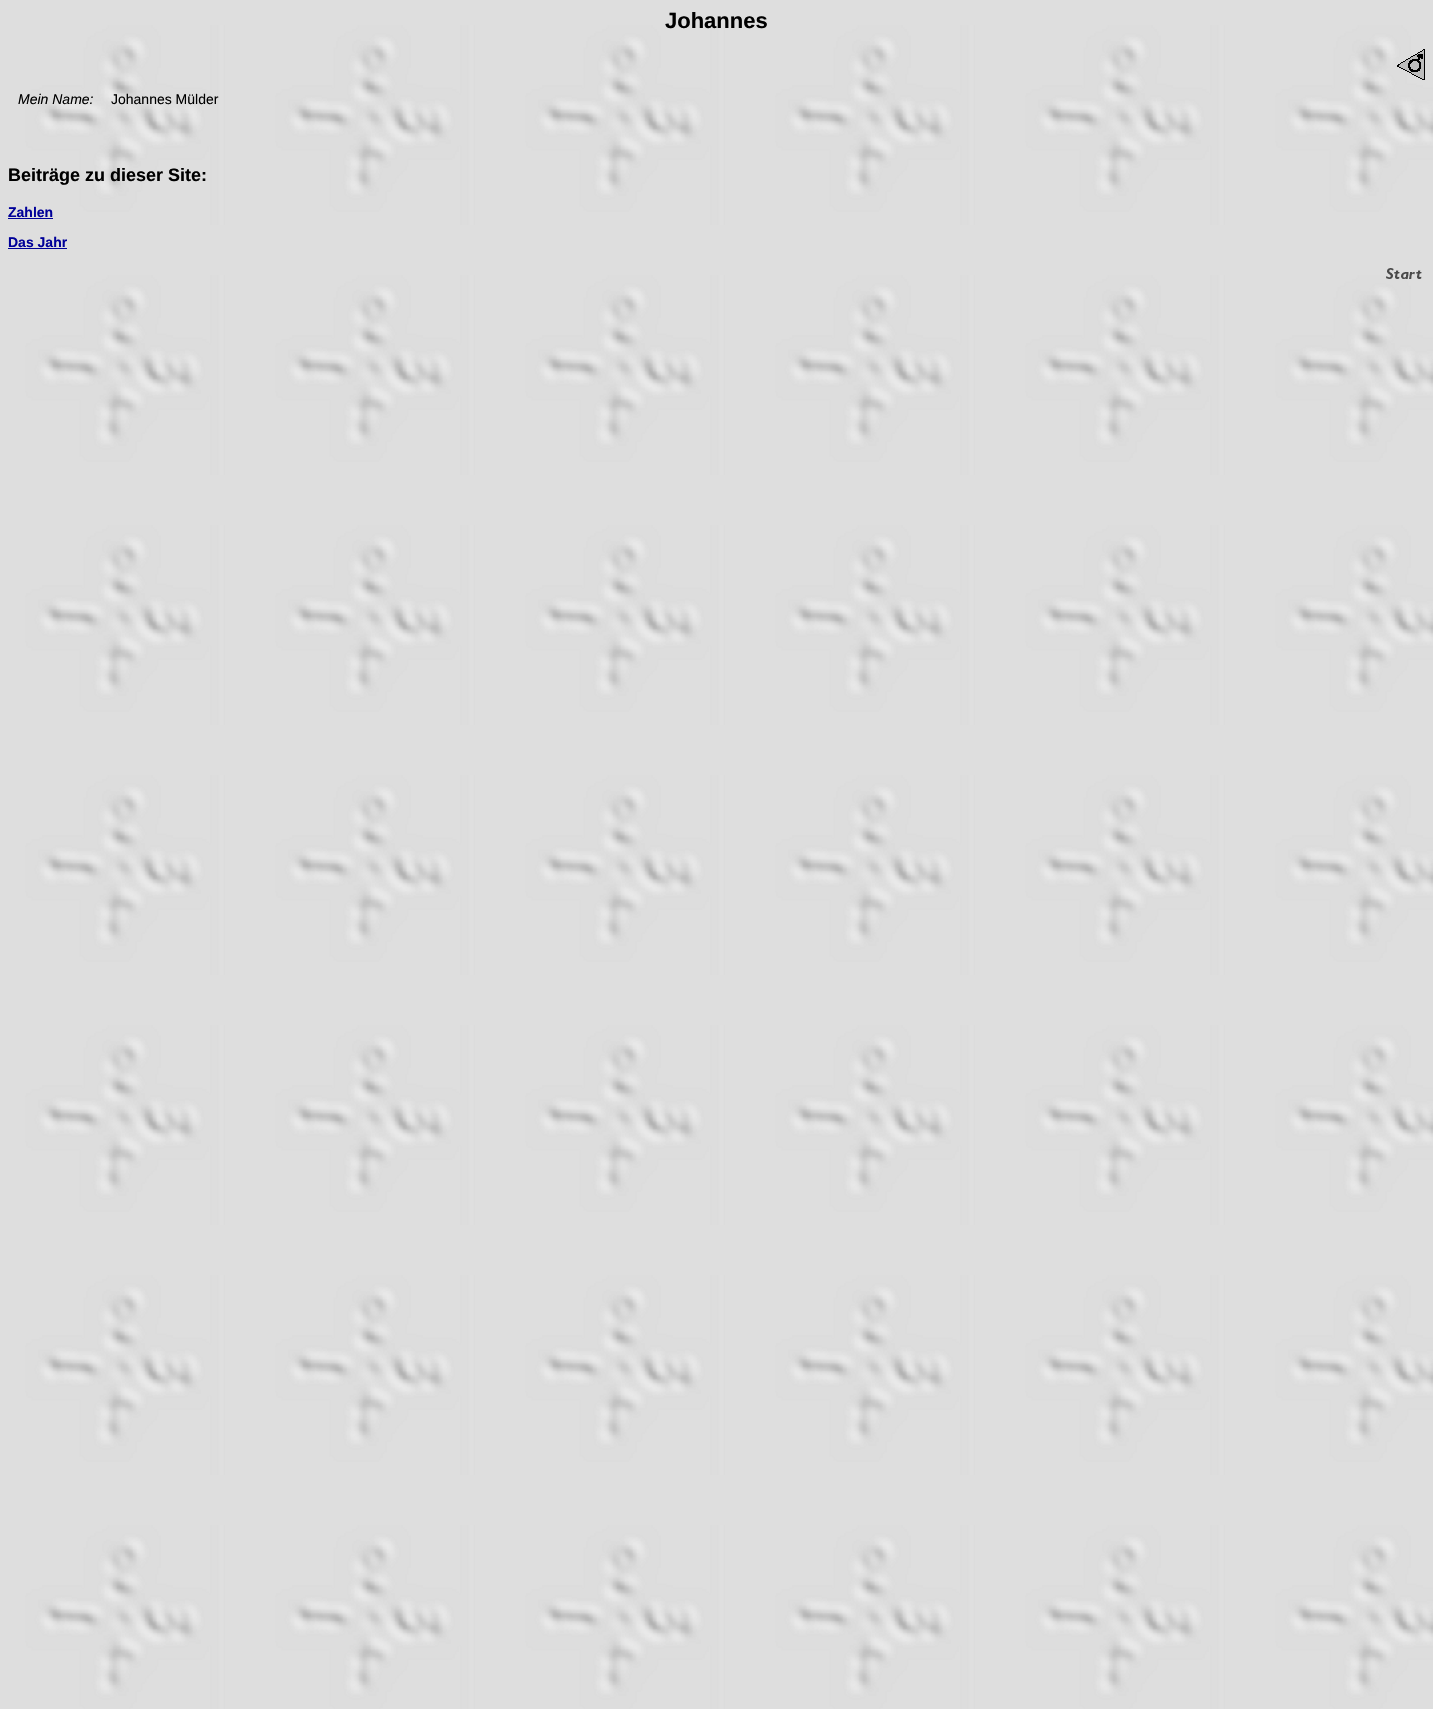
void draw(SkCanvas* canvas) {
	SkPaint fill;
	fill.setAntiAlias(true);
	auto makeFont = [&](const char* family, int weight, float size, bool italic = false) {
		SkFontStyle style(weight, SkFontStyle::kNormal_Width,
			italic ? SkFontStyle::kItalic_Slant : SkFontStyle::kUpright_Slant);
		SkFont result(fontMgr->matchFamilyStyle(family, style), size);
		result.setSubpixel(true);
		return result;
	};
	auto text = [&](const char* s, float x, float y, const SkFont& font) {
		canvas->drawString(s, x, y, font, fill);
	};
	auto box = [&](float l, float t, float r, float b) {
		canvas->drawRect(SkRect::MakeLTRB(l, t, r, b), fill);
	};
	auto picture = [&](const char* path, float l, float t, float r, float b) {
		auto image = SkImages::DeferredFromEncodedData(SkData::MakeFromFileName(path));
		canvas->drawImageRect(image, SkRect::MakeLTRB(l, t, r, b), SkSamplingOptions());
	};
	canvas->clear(0xFFFFFFFF);
	picture("image0.png", 0, 0, 1433, 1709);
	picture("image1.png", 1397, 49, 1425, 80);
	fill.setColor(0xFF000099);
	box(8, 218, 53, 219);
	box(8, 248, 67, 249);
	picture("image2.png", 1386, 268, 1422, 279);
	auto font1 = makeFont("Liberation Sans", 700, 22);
	fill.setColor(0xFF000000);
	text("Johannes", 665, 28, font1);
	auto font2 = makeFont("Liberation Sans", 400, 14, true);
	text("Mein Name:", 18, 104, font2);
	auto font3 = makeFont("Liberation Sans", 400, 14);
	text("Johannes Mülder", 111, 104, font3);
	auto font4 = makeFont("Liberation Sans", 700, 18);
	text("Beiträge zu dieser Site:", 8, 181, font4);
	auto font5 = makeFont("Liberation Sans", 700, 14);
	fill.setColor(0xFF000099);
	text("Zahlen", 8, 217, font5);
	text("Das Jahr", 8, 247, font5);
}
